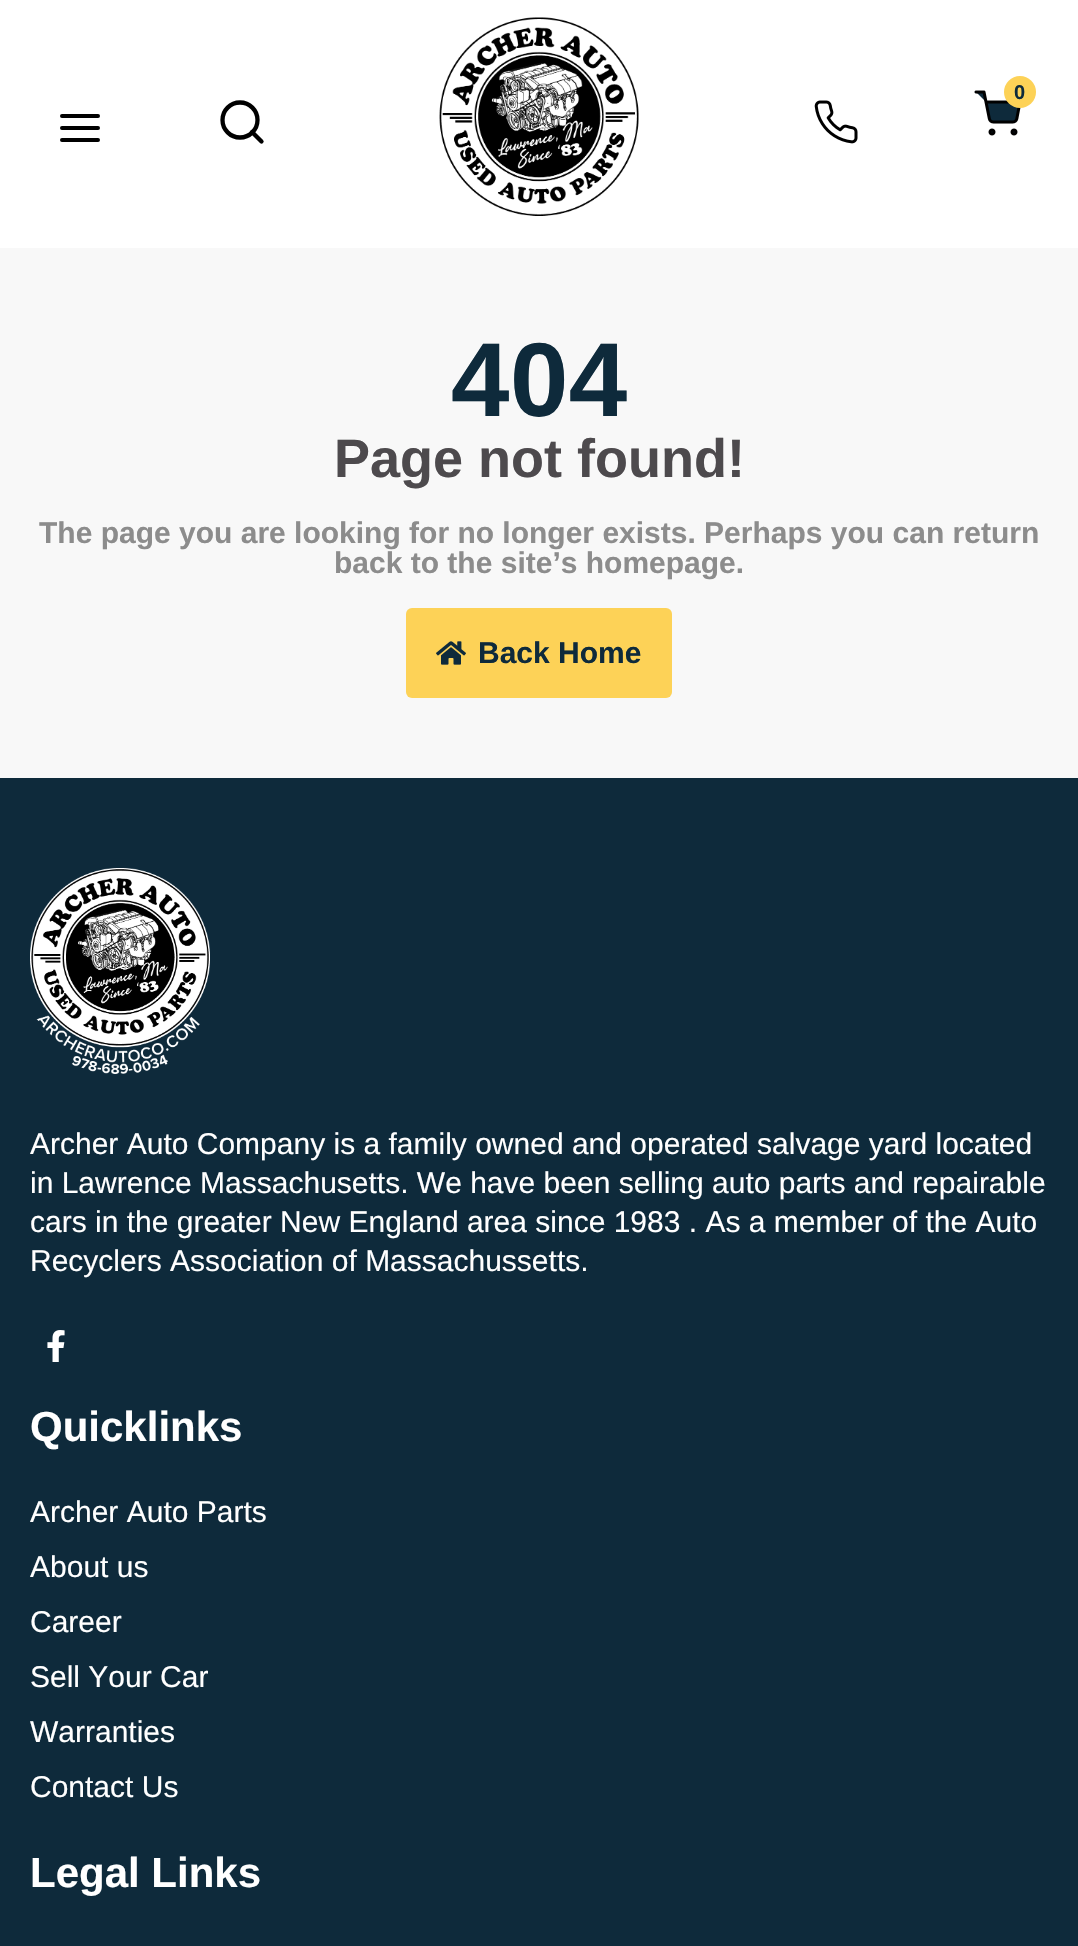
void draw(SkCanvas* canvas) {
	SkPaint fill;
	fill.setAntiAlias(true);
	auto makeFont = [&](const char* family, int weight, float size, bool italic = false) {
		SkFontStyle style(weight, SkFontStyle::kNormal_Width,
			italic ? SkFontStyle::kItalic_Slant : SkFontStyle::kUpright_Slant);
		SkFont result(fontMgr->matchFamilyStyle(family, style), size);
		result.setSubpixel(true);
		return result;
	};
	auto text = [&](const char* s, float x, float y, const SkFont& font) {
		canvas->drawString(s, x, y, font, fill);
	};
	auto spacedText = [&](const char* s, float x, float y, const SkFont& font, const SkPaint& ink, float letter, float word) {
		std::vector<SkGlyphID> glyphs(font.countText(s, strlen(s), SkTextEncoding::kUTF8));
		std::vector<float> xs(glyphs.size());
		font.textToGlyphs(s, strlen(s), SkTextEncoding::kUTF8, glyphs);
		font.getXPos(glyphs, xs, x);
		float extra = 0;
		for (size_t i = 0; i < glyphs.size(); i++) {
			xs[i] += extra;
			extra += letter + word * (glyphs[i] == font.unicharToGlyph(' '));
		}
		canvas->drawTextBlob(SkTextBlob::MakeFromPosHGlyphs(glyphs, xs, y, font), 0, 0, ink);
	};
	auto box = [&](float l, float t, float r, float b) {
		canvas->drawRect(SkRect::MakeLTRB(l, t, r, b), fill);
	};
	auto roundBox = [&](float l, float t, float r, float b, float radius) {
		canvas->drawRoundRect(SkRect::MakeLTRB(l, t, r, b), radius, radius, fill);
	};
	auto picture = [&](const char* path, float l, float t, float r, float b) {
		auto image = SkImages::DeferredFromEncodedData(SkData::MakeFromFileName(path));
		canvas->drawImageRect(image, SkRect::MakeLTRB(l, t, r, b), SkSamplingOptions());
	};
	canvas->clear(0xFFF8F8F8);
	fill.setColor(0xFFFFFFFF);
	box(0, 0, 1078, 248);
	picture("image0.png", 439, 17, 639, 216);
	picture("image1.png", 974, 90, 1021, 136);
	fill.setColor(0xFFFDD257);
	canvas->drawCircle(1020, 92, 16, fill);
	fill.setStyle(SkPaint::kStroke_Style);
	fill.setStrokeWidth(4);
	fill.setStrokeCap(SkPaint::kRound_Cap);
	fill.setStrokeJoin(SkPaint::kRound_Join);
	fill.setColor(0xFF000000);
	canvas->drawPath(SkPathBuilder().moveTo(62, 128).lineTo(98, 128).moveTo(62, 116).lineTo(98, 116).moveTo(62, 140).lineTo(98, 140).detach(), fill);
	fill.setStrokeWidth(4.3f);
	fill.setStrokeCap(SkPaint::kButt_Cap);
	fill.setStrokeJoin(SkPaint::kMiter_Join);
	canvas->drawCircle(240, 120, 17.5f, fill);
	fill.setStrokeCap(SkPaint::kRound_Cap);
	fill.setStrokeJoin(SkPaint::kRound_Join);
	canvas->drawPath(SkPathBuilder().moveTo(261.5f, 141.5f).lineTo(252, 132).detach(), fill);
	picture("image2.png", 814, 100, 858, 144);
	fill.setStyle(SkPaint::kFill_Style);
	fill.setColor(0xFFFDD257);
	roundBox(406, 608, 672, 698, 6);
	picture("image3.png", 436, 641, 466, 665);
	fill.setColor(0xFF0E2A3B);
	box(0, 778, 1078, 1946);
	picture("image4.png", 30, 868, 210, 1074);
	picture("image5.png", 47, 1330, 65, 1362);
	auto font1 = makeFont("Liberation Sans", 700, 20);
	text("0", 1014, 99, font1);
	auto font2 = makeFont("Liberation Sans", 700, 105);
	spacedText("404", 451, 416, font2, fill, 0.5f, 0);
	auto font3 = makeFont("Liberation Sans", 700, 54);
	fill.setColor(0xFF4D4A4D);
	text("Page not found!", 334, 477, font3);
	auto font4 = makeFont("Liberation Sans", 700, 30);
	fill.setColor(0xFF8C8C8C);
	text("The page you are looking for no longer exists. Perhaps you can return", 39, 543, font4);
	text("back to the site’s homepage.", 334, 573, font4);
	fill.setColor(0xFF0E2A3B);
	text("Back Home", 478, 663, font4);
	auto font5 = makeFont("Liberation Sans", 400, 30);
	fill.setColor(0xFFFFFFFF);
	text("Archer Auto Company is a family owned and operated salvage yard located", 30, 1154, font5);
	text("in Lawrence Massachusetts. We have been selling auto parts and repairable", 30, 1193, font5);
	text("cars in the greater New England area since 1983 . As a member of the Auto", 30, 1232, font5);
	text("Recyclers Association of Massachussetts.", 30, 1271, font5);
	auto font6 = makeFont("Liberation Sans", 700, 42);
	text("Quicklinks", 30, 1441, font6);
	text("Archer Auto Parts", 30, 1522, font5);
	text("About us", 30, 1577, font5);
	text("Career", 30, 1632, font5);
	text("Sell Your Car", 30, 1687, font5);
	text("Warranties", 30, 1742, font5);
	text("Contact Us", 30, 1797, font5);
	text("Legal Links", 30, 1887, font6);
}
